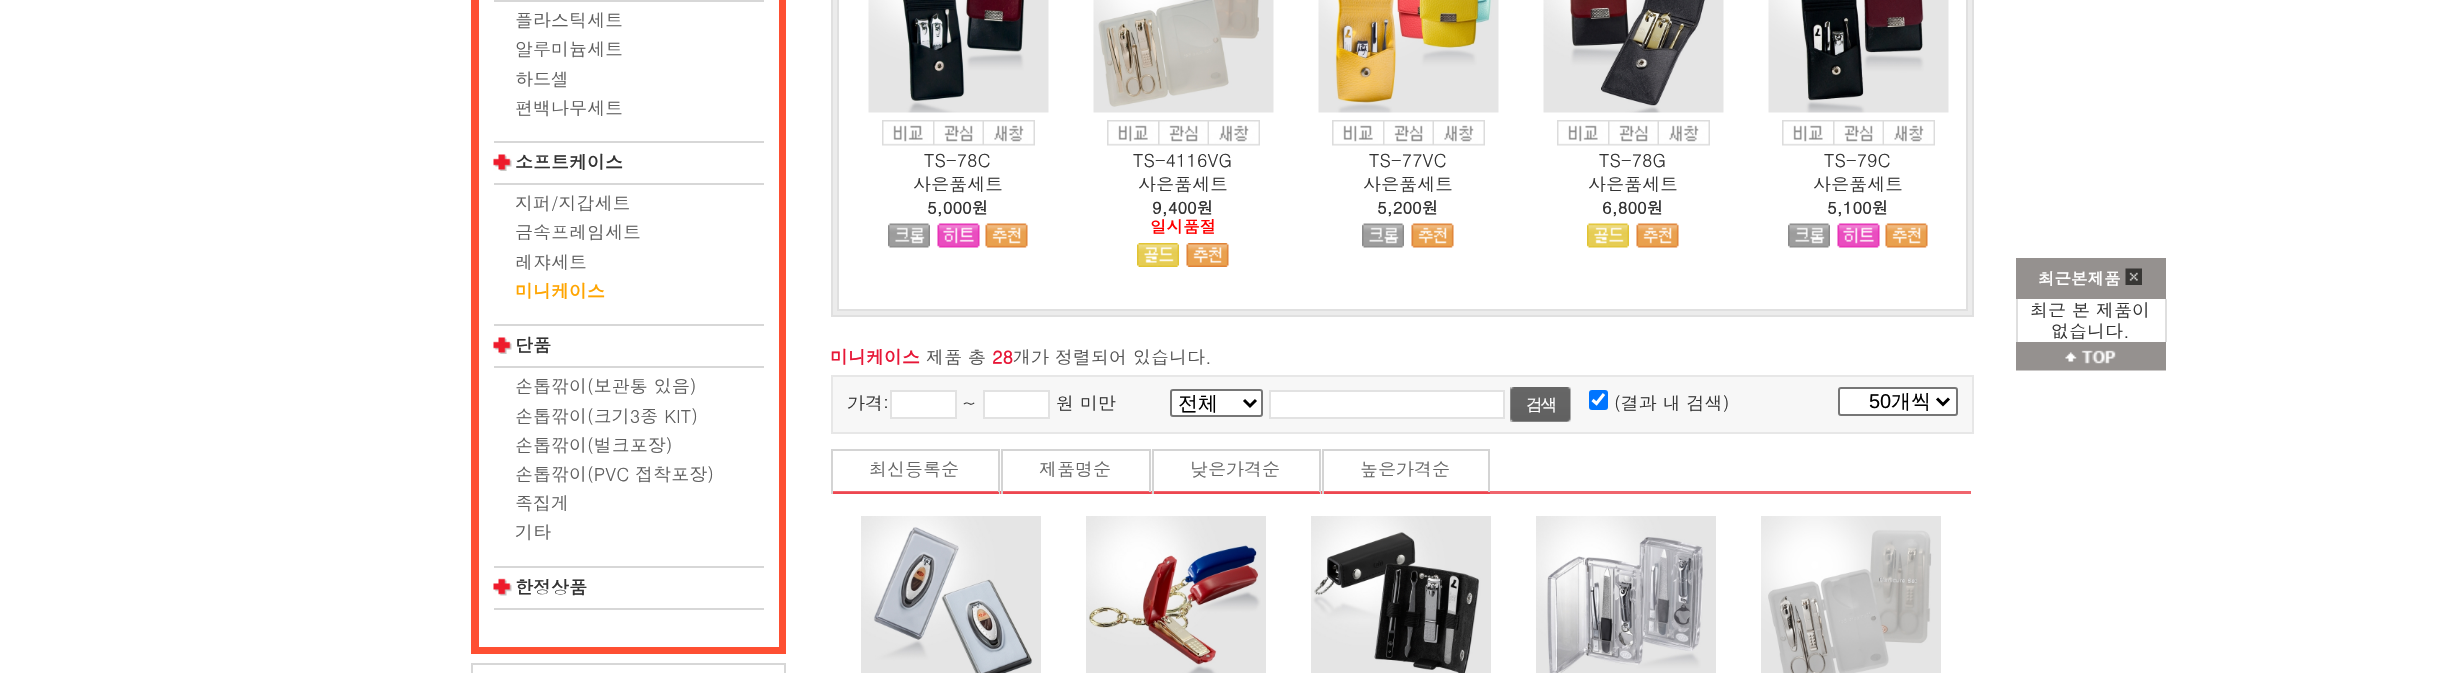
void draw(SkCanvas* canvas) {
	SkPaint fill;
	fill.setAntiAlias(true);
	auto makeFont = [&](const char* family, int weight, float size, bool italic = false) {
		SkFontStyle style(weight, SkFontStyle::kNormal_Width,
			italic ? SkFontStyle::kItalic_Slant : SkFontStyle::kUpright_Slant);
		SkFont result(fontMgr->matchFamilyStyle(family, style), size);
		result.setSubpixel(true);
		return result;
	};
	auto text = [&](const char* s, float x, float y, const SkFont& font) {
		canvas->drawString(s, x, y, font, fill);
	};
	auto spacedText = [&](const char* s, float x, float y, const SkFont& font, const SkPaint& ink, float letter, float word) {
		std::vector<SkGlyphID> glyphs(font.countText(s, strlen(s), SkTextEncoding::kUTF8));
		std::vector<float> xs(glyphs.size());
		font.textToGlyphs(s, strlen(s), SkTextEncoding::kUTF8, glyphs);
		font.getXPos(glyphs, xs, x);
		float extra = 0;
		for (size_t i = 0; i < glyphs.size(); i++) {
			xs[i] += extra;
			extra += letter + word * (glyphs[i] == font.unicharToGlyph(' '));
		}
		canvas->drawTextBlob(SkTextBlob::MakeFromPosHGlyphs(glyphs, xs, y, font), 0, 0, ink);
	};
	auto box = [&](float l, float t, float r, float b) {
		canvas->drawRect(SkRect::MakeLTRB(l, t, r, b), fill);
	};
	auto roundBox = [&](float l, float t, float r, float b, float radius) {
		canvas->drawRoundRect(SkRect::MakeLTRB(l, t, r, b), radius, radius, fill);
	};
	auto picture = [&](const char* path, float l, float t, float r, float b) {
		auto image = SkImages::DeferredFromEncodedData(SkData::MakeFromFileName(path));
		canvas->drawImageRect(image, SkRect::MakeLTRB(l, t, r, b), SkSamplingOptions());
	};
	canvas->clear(0xFFFFFFFF);
	fill.setColor(0xFFFE4F32);
	box(779, 0, 786, 654);
	box(471, 0, 479, 654);
	fill.setColor(0xFFD7D7D7);
	box(494, 0, 764, 2);
	picture("image0.png", 493, 154, 512, 171);
	box(494, 141, 764, 143);
	box(494, 183, 764, 185);
	picture("image0.png", 493, 337, 512, 354);
	box(494, 324, 764, 326);
	box(494, 366, 764, 368);
	picture("image1.png", 493, 578, 512, 596);
	box(494, 566, 764, 568);
	box(494, 608, 764, 610);
	fill.setColor(0xFFFE4F32);
	box(479, 647, 779, 654);
	fill.setStyle(SkPaint::kStroke_Style);
	fill.setStrokeWidth(2);
	fill.setColor(0xFFD7D7D7);
	canvas->drawRect(SkRect::MakeLTRB(472, 664, 785, 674), fill);
	fill.setStyle(SkPaint::kFill_Style);
	fill.setColor(0xFFECECEC);
	canvas->drawRect(SkRect::MakeLTRB(832, -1, 1973, 316), fill);
	fill.setStyle(SkPaint::kStroke_Style);
	fill.setColor(0xFFE0E0E0);
	canvas->drawRect(SkRect::MakeLTRB(832, -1, 1973, 316), fill);
	fill.setStyle(SkPaint::kFill_Style);
	fill.setColor(0xFFFFFFFF);
	canvas->drawRect(SkRect::MakeLTRB(838, -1, 1967, 310), fill);
	fill.setStyle(SkPaint::kStroke_Style);
	fill.setColor(0xFFE0E0E0);
	canvas->drawRect(SkRect::MakeLTRB(838, -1, 1967, 310), fill);
	picture("image2.png", 868, 0, 1049, 113);
	picture("image3.png", 882, 120, 933, 146);
	picture("image4.png", 933, 120, 984, 146);
	picture("image5.png", 984, 120, 1035, 146);
	picture("image6.png", 888, 223, 930, 248);
	picture("image7.png", 937, 223, 980, 248);
	picture("image8.png", 985, 223, 1028, 248);
	picture("image9.png", 1093, 0, 1274, 113);
	picture("image10.png", 1107, 120, 1158, 146);
	picture("image11.png", 1158, 120, 1209, 146);
	picture("image12.png", 1209, 120, 1260, 146);
	picture("image13.png", 1137, 243, 1179, 267);
	picture("image14.png", 1186, 243, 1229, 267);
	picture("image15.png", 1318, 0, 1499, 113);
	picture("image10.png", 1332, 120, 1383, 146);
	picture("image4.png", 1383, 120, 1434, 146);
	picture("image5.png", 1434, 120, 1485, 146);
	picture("image16.png", 1362, 223, 1404, 248);
	picture("image17.png", 1411, 223, 1454, 248);
	picture("image18.png", 1543, 0, 1724, 113);
	picture("image3.png", 1557, 120, 1608, 146);
	picture("image4.png", 1608, 120, 1659, 146);
	picture("image5.png", 1659, 120, 1710, 146);
	picture("image19.png", 1587, 223, 1629, 248);
	picture("image8.png", 1636, 223, 1679, 248);
	picture("image20.png", 1768, 0, 1949, 113);
	picture("image21.png", 1782, 120, 1833, 146);
	picture("image11.png", 1833, 120, 1884, 146);
	picture("image12.png", 1884, 120, 1935, 146);
	picture("image22.png", 1788, 223, 1830, 248);
	picture("image7.png", 1837, 223, 1880, 248);
	picture("image17.png", 1885, 223, 1928, 248);
	fill.setStyle(SkPaint::kFill_Style);
	fill.setColor(0xFFF7F7F7);
	canvas->drawRect(SkRect::MakeLTRB(832, 376, 1973, 433), fill);
	fill.setStyle(SkPaint::kStroke_Style);
	fill.setColor(0xFFE7E7E7);
	canvas->drawRect(SkRect::MakeLTRB(832, 376, 1973, 433), fill);
	fill.setStyle(SkPaint::kFill_Style);
	fill.setColor(0xFFFFFFFF);
	canvas->drawRect(SkRect::MakeLTRB(891, 391, 956, 418), fill);
	fill.setStyle(SkPaint::kStroke_Style);
	fill.setColor(0xFFE2E2E2);
	canvas->drawRect(SkRect::MakeLTRB(891, 391, 956, 418), fill);
	fill.setStyle(SkPaint::kFill_Style);
	fill.setColor(0xFFFFFFFF);
	canvas->drawRect(SkRect::MakeLTRB(984, 391, 1049, 418), fill);
	fill.setStyle(SkPaint::kStroke_Style);
	fill.setColor(0xFFE2E2E2);
	canvas->drawRect(SkRect::MakeLTRB(984, 391, 1049, 418), fill);
	fill.setStyle(SkPaint::kFill_Style);
	fill.setColor(0xFFFFFFFF);
	canvas->drawRoundRect(SkRect::MakeLTRB(1171, 390, 1262, 416), 2, 2, fill);
	fill.setStyle(SkPaint::kStroke_Style);
	fill.setColor(0xFF767676);
	canvas->drawRoundRect(SkRect::MakeLTRB(1171, 390, 1262, 416), 2, 2, fill);
	fill.setStrokeWidth(3);
	fill.setColor(0xFF000000);
	canvas->drawPath(SkPathBuilder().moveTo(1244, 400).lineTo(1250, 406).lineTo(1256, 400).detach(), fill);
	fill.setStyle(SkPaint::kFill_Style);
	fill.setColor(0xFFFFFFFF);
	canvas->drawRect(SkRect::MakeLTRB(1270, 391, 1504, 418), fill);
	fill.setStyle(SkPaint::kStroke_Style);
	fill.setStrokeWidth(2);
	fill.setColor(0xFFE2E2E2);
	canvas->drawRect(SkRect::MakeLTRB(1270, 391, 1504, 418), fill);
	picture("image23.png", 1510, 387, 1571, 422);
	picture("image24.png", 1510, 387, 1568, 422);
	fill.setStyle(SkPaint::kFill_Style);
	fill.setColor(0xFF0075FF);
	roundBox(1589, 390, 1608, 410, 3);
	fill.setStyle(SkPaint::kStroke_Style);
	fill.setStrokeWidth(3.1f);
	fill.setColor(0xFFFFFFFF);
	canvas->drawPath(SkPathBuilder().moveTo(1592.5f, 400).lineTo(1596.5f, 403.5f).lineTo(1604, 394).detach(), fill);
	fill.setStyle(SkPaint::kFill_Style);
	canvas->drawRoundRect(SkRect::MakeLTRB(1839, 388, 1957, 415), 2, 2, fill);
	fill.setStyle(SkPaint::kStroke_Style);
	fill.setStrokeWidth(2);
	fill.setColor(0xFF767676);
	canvas->drawRoundRect(SkRect::MakeLTRB(1839, 388, 1957, 415), 2, 2, fill);
	fill.setStrokeWidth(3);
	fill.setColor(0xFF000000);
	canvas->drawPath(SkPathBuilder().moveTo(1937, 398.5f).lineTo(1943, 404.5f).lineTo(1949, 398.5f).detach(), fill);
	fill.setStyle(SkPaint::kFill_Style);
	fill.setColor(0xFFF0656D);
	box(831, 491, 1971, 494);
	fill.setColor(0xFFD4D4D4);
	box(831, 449, 999, 451);
	box(998, 449, 1000, 494);
	fill.setColor(0xFFED4650);
	box(831, 492, 999, 494);
	fill.setColor(0xFFD4D4D4);
	box(831, 449, 833, 494);
	box(1001, 449, 1151, 451);
	box(1149, 449, 1151, 494);
	fill.setColor(0xFFED4650);
	box(1001, 492, 1151, 494);
	fill.setColor(0xFFD4D4D4);
	box(1001, 449, 1003, 494);
	box(1152, 449, 1320, 451);
	box(1319, 449, 1321, 494);
	fill.setColor(0xFFED4650);
	box(1152, 492, 1320, 494);
	fill.setColor(0xFFD4D4D4);
	box(1152, 449, 1154, 494);
	box(1322, 449, 1490, 451);
	box(1488, 449, 1490, 494);
	fill.setColor(0xFFED4650);
	box(1322, 492, 1490, 494);
	fill.setColor(0xFFD4D4D4);
	box(1322, 449, 1324, 494);
	picture("image25.png", 861, 516, 1041, 673);
	picture("image26.png", 1086, 516, 1266, 673);
	picture("image27.png", 1311, 516, 1491, 673);
	picture("image28.png", 1536, 516, 1716, 673);
	picture("image29.png", 1761, 516, 1941, 673);
	fill.setColor(0xFF95918F);
	box(2016, 258, 2166, 299);
	picture("image30.png", 2125, 268, 2142, 285);
	fill.setColor(0xFFDFDFDF);
	box(2165, 299, 2167, 342);
	box(2016, 299, 2018, 342);
	picture("image31.png", 2016, 342, 2166, 371);
	auto font1 = makeFont("Dotum", 400, 18);
	fill.setColor(0xFF5F5F5F);
	text("플라스틱세트", 515, 27, font1);
	text("알루미늄세트", 515, 56, font1);
	text("하드셀", 515, 86, font1);
	text("편백나무세트", 515, 115, font1);
	auto font2 = makeFont("Dotum", 700, 18);
	fill.setColor(0xFF333333);
	text("소프트케이스", 515, 169, font2);
	fill.setColor(0xFF5F5F5F);
	text("지퍼/지갑세트", 515, 210, font1);
	text("금속프레임세트", 515, 239, font1);
	text("레쟈세트", 515, 269, font1);
	fill.setColor(0xFFFFA500);
	text("미니케이스", 515, 298, font2);
	fill.setColor(0xFF333333);
	text("단품", 515, 352, font2);
	fill.setColor(0xFF5F5F5F);
	text("손톱깎이(보관통 있음)", 515, 393, font1);
	text("손톱깎이(크기3종 KIT)", 515, 423, font1);
	text("손톱깎이(벌크포장)", 515, 452, font1);
	text("손톱깎이(PVC 접착포장)", 515, 481, font1);
	text("족집게", 515, 510, font1);
	text("기타", 515, 539, font1);
	fill.setColor(0xFF333333);
	text("한정상품", 515, 594, font2);
	text("TS-78C", 924, 167, font1);
	text("사은품세트", 913, 191, font1);
	auto font3 = makeFont("Dotum", 700, 16.5f);
	text("5,000원", 927, 214, font3);
	text("TS-4116VG", 1133, 167, font1);
	text("사은품세트", 1138, 191, font1);
	text("9,400원", 1152, 214, font3);
	fill.setColor(0xFFFF0000);
	text("일시품절", 1150, 233, font3);
	fill.setColor(0xFF333333);
	text("TS-77VC", 1369, 167, font1);
	text("사은품세트", 1363, 191, font1);
	text("5,200원", 1377, 214, font3);
	text("TS-78G", 1599, 167, font1);
	text("사은품세트", 1588, 191, font1);
	text("6,800원", 1602, 214, font3);
	text("TS-79C", 1824, 167, font1);
	text("사은품세트", 1813, 191, font1);
	text("5,100원", 1827, 214, font3);
	fill.setColor(0xFFE71737);
	text("미니케이스", 830, 364, font2);
	fill.setColor(0xFF535353);
	text("제품 총", 926, 364, font1);
	fill.setColor(0xFFE71737);
	text("28", 992, 364, font2);
	fill.setColor(0xFF535353);
	text("개가 정렬되어 있습니다.", 1013, 364, font1);
	fill.setColor(0xFF333333);
	text("가격:", 847, 410, font1);
	text("~", 962, 410, font1);
	text("원 미만", 1056, 410, font1);
	auto font4 = makeFont("WenQuanYi Zen Hei", 500, 20);
	fill.setColor(0xFF000000);
	text("전체", 1178, 410, font4);
	auto font5 = makeFont("WenQuanYi Zen Hei", 500, 16.5f);
	fill.setColor(0xFFFFFFFF);
	spacedText("검색", 1526, 410, font5, fill, -2, 0);
	fill.setColor(0xFF333333);
	text("(결과 내 검색)", 1614, 410, font1);
	auto font6 = makeFont("Liberation Sans", 400, 20);
	fill.setColor(0xFF000000);
	text("50", 1869, 408, font6);
	text("개씩", 1891, 408, font4);
	fill.setColor(0xFF666666);
	text("최신등록순", 869, 476, font1);
	text("제품명순", 1039, 476, font1);
	text("낮은가격순", 1190, 476, font1);
	text("높은가격순", 1360, 476, font1);
	fill.setColor(0xFFFFFFFF);
	text("최근본제품", 2038, 285, font3);
	fill.setColor(0xFF333333);
	text("최근 본 제품이", 2030, 317, font1);
	text("없습니다.", 2051, 338, font1);
}
